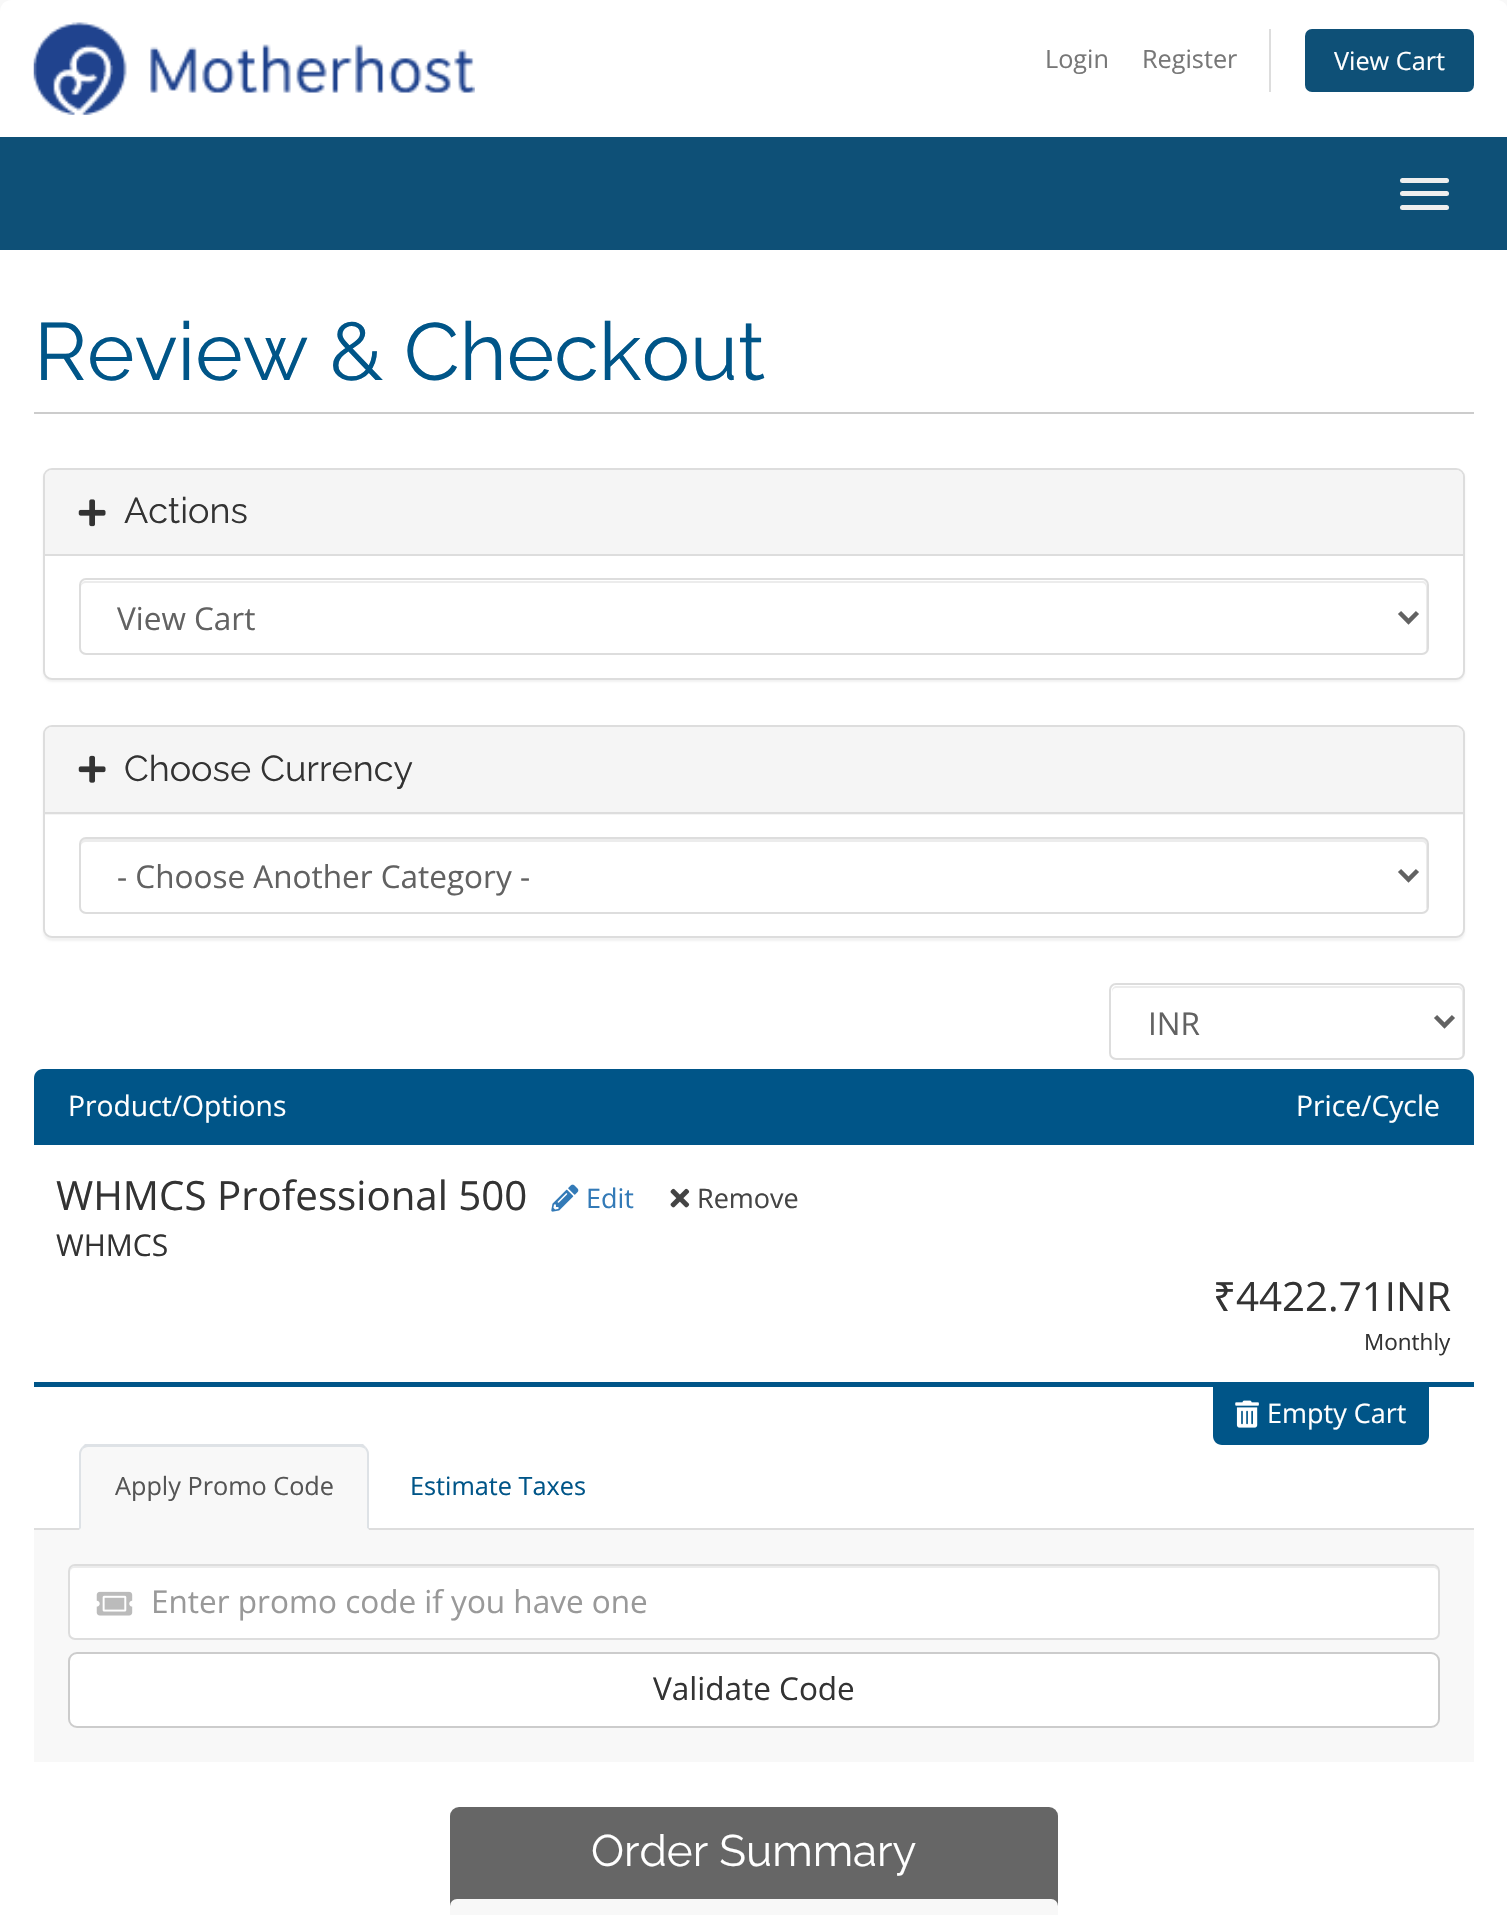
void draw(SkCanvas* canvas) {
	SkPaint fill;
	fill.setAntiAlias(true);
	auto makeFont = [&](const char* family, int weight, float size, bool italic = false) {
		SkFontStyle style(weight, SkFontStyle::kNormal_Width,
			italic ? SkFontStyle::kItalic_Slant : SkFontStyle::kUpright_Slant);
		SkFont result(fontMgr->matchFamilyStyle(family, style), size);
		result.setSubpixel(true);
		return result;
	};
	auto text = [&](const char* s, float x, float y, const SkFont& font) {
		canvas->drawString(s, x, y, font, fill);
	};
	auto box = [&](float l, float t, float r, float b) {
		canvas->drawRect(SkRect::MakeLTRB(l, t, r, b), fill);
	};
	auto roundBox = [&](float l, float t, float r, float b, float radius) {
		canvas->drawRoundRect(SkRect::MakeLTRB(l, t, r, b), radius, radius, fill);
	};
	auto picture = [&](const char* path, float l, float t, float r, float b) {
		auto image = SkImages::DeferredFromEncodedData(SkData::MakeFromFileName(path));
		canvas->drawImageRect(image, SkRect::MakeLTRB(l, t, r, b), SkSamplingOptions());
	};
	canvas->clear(0xFFF8F8F8);
	fill.setColor(0xFFFFFFFF);
	canvas->drawPath(SkPathBuilder().moveTo(11, 0).lineTo(1497, 0).cubicTo(1503, 0, 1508, 5, 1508, 11).lineTo(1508, 137).lineTo(0, 137).lineTo(0, 11).cubicTo(0, 5, 5, 0, 11, 0).close().detach(), fill);
	picture("image0.png", 33, 22, 475, 115);
	fill.setColor(0xFFDDDDDD);
	box(1269, 29, 1271, 92);
	fill.setColor(0xFF0E5077);
	roundBox(1305, 29, 1474, 92, 7);
	box(0, 137, 1507, 250);
	fill.setColor(0xFFEEEEEE);
	roundBox(1400, 178, 1449, 183, 2.5f);
	roundBox(1400, 191, 1449, 196, 2.5f);
	roundBox(1400, 205, 1449, 210, 2.5f);
	fill.setColor(0xFFFFFFFF);
	box(0, 250, 1507, 1915);
	fill.setColor(0xFFCCCCCC);
	box(34, 412, 1474, 414);
	fill.setColor(0x0D000000);
	fill.setMaskFilter(SkMaskFilter::MakeBlur(kNormal_SkBlurStyle, 1));
	canvas->drawRoundRect(SkRect::MakeLTRB(43, 470, 1465, 682), 9, 9, fill);
	fill.setMaskFilter(nullptr);
	fill.setColor(0xFFFFFFFF);
	canvas->drawRoundRect(SkRect::MakeLTRB(44, 469, 1464, 679), 8, 8, fill);
	fill.setStyle(SkPaint::kStroke_Style);
	fill.setStrokeWidth(2);
	fill.setColor(0xFFDDDDDD);
	canvas->drawRoundRect(SkRect::MakeLTRB(44, 469, 1464, 679), 8, 8, fill);
	fill.setStyle(SkPaint::kFill_Style);
	fill.setColor(0xFFF5F5F5);
	canvas->drawPath(SkPathBuilder().moveTo(52, 470).lineTo(1456, 470).cubicTo(1460, 470, 1463, 473, 1463, 477).lineTo(1463, 556).lineTo(45, 556).lineTo(45, 477).cubicTo(45, 473, 48, 470, 52, 470).close().detach(), fill);
	fill.setColor(0xFFDDDDDD);
	box(45, 554, 1463, 556);
	picture("image1.png", 78, 499, 106, 527);
	fill.setColor(0xFFECECEC);
	canvas->drawPath(SkPathBuilder().moveTo(86, 583).lineTo(1422, 583).cubicTo(1424, 583, 1426, 585, 1426, 587).lineTo(1426, 651).cubicTo(1427, 650, 1427, 649, 1427, 648).lineTo(1427, 586).cubicTo(1427, 583, 1425, 581, 1422, 581).lineTo(86, 581).cubicTo(83, 581, 81, 583, 81, 586).lineTo(81, 587).cubicTo(81, 585, 83, 583, 86, 583).close().detach(), fill);
	fill.setStyle(SkPaint::kStroke_Style);
	fill.setColor(0xFFDDDDDD);
	canvas->drawRoundRect(SkRect::MakeLTRB(80, 579, 1428, 654), 6, 6, fill);
	fill.setStrokeWidth(4.5f);
	fill.setColor(0xFF626262);
	canvas->drawPath(SkPathBuilder().moveTo(1399.5f, 612.5f).lineTo(1408.5f, 621.5f).lineTo(1417.5f, 612.5f).detach(), fill);
	fill.setStyle(SkPaint::kFill_Style);
	fill.setColor(0x0D000000);
	fill.setMaskFilter(SkMaskFilter::MakeBlur(kNormal_SkBlurStyle, 1));
	canvas->drawRoundRect(SkRect::MakeLTRB(43, 727, 1465, 941), 9, 9, fill);
	fill.setMaskFilter(nullptr);
	fill.setColor(0xFFFFFFFF);
	canvas->drawRoundRect(SkRect::MakeLTRB(44, 726, 1464, 937), 8, 8, fill);
	fill.setStyle(SkPaint::kStroke_Style);
	fill.setStrokeWidth(2);
	fill.setColor(0xFFDDDDDD);
	canvas->drawRoundRect(SkRect::MakeLTRB(44, 726, 1464, 937), 8, 8, fill);
	fill.setStyle(SkPaint::kFill_Style);
	fill.setColor(0xFFF5F5F5);
	canvas->drawPath(SkPathBuilder().moveTo(52, 727).lineTo(1456, 727).cubicTo(1460, 727, 1463, 730, 1463, 734).lineTo(1463, 815).lineTo(45, 815).lineTo(45, 734).cubicTo(45, 730, 48, 727, 52, 727).close().detach(), fill);
	fill.setColor(0xFFDDDDDD);
	box(45, 812, 1463, 814);
	picture("image2.png", 78, 755, 106, 783);
	fill.setColor(0xFFECECEC);
	canvas->drawPath(SkPathBuilder().moveTo(86, 842).lineTo(1422, 842).cubicTo(1424, 842, 1426, 844, 1426, 846).lineTo(1426, 909).cubicTo(1427, 908, 1427, 907, 1427, 906).lineTo(1427, 844).cubicTo(1427, 841, 1425, 839, 1422, 839).lineTo(86, 839).cubicTo(83, 839, 81, 841, 81, 844).lineTo(81, 846).cubicTo(81, 844, 83, 842, 86, 842).close().detach(), fill);
	fill.setStyle(SkPaint::kStroke_Style);
	fill.setColor(0xFFDDDDDD);
	canvas->drawRoundRect(SkRect::MakeLTRB(80, 838, 1428, 913), 6, 6, fill);
	fill.setStrokeWidth(4.5f);
	fill.setColor(0xFF626262);
	canvas->drawPath(SkPathBuilder().moveTo(1399.5f, 870.5f).lineTo(1408.5f, 879.5f).lineTo(1417.5f, 870.5f).detach(), fill);
	fill.setStyle(SkPaint::kFill_Style);
	fill.setColor(0xFFECECEC);
	canvas->drawPath(SkPathBuilder().moveTo(1116, 988).lineTo(1458, 988).cubicTo(1460, 988, 1462, 990, 1462, 992).lineTo(1462, 1056).cubicTo(1463, 1055, 1463, 1054, 1463, 1053).lineTo(1463, 991).cubicTo(1463, 988, 1461, 986, 1458, 986).lineTo(1117, 986).cubicTo(1114, 986, 1112, 988, 1112, 991).lineTo(1112, 992).cubicTo(1112, 990, 1114, 988, 1116, 988).close().detach(), fill);
	fill.setStyle(SkPaint::kStroke_Style);
	fill.setStrokeWidth(2);
	fill.setColor(0xFFDDDDDD);
	canvas->drawRoundRect(SkRect::MakeLTRB(1110, 984, 1464, 1059), 6, 6, fill);
	fill.setStrokeWidth(4.5f);
	fill.setColor(0xFF626262);
	canvas->drawPath(SkPathBuilder().moveTo(1435.5f, 1016.5f).lineTo(1444.5f, 1025.5f).lineTo(1453.5f, 1016.5f).detach(), fill);
	fill.setStyle(SkPaint::kFill_Style);
	fill.setColor(0xFF005588);
	canvas->drawPath(SkPathBuilder().moveTo(43, 1069).lineTo(1465, 1069).cubicTo(1470, 1069, 1474, 1073, 1474, 1078).lineTo(1474, 1145).lineTo(34, 1145).lineTo(34, 1078).cubicTo(34, 1073, 38, 1069, 43, 1069).close().detach(), fill);
	box(34, 1382, 1474, 1387);
	picture("image3.png", 551, 1184, 579, 1212);
	picture("image4.png", 670, 1188, 690, 1208);
	canvas->drawPath(SkPathBuilder().moveTo(1213, 1386).lineTo(1429, 1386).lineTo(1429, 1436).cubicTo(1429, 1441, 1425, 1445, 1420, 1445).lineTo(1222, 1445).cubicTo(1217, 1445, 1213, 1441, 1213, 1436).close().detach(), fill);
	picture("image5.png", 1235, 1400, 1259, 1428);
	fill.setColor(0xFFDDDDDD);
	box(34, 1528, 1474, 1530);
	fill.setColor(0xFFF8F8F8);
	canvas->drawPath(SkPathBuilder().moveTo(88, 1445).lineTo(360, 1445).cubicTo(365, 1445, 369, 1449, 369, 1454).lineTo(369, 1530).lineTo(79, 1530).lineTo(79, 1454).cubicTo(79, 1449, 83, 1445, 88, 1445).close().detach(), fill);
	fill.setColor(0xFFDEE2E6);
	canvas->drawPath(SkPathBuilder().moveTo(88, 1447).cubicTo(86, 1447, 84, 1448, 83, 1449).lineTo(82, 1447).lineTo(85, 1444).lineTo(363, 1444).lineTo(366, 1447).lineTo(365, 1449).cubicTo(364, 1448, 362, 1447, 360, 1447).close().detach(), fill);
	canvas->drawPath(SkPathBuilder().moveTo(369, 1530).lineTo(369, 1454).cubicTo(369, 1452, 368, 1449, 366, 1447).lineTo(365, 1449).cubicTo(366, 1450, 367, 1452, 367, 1454).lineTo(367, 1528).close().detach(), fill);
	fill.setColor(0xFFF8F8F8);
	canvas->drawPath(SkPathBuilder().moveTo(369, 1530).lineTo(367, 1528).lineTo(81, 1528).lineTo(79, 1530).close().detach(), fill);
	fill.setColor(0xFFDEE2E6);
	canvas->drawPath(SkPathBuilder().moveTo(79, 1530).lineTo(79, 1454).cubicTo(79, 1452, 80, 1449, 82, 1447).lineTo(83, 1449).cubicTo(82, 1450, 81, 1452, 81, 1454).lineTo(81, 1528).close().detach(), fill);
	fill.setColor(0xFFF8F8F8);
	box(34, 1530, 1474, 1762);
	fill.setColor(0xFFFFFFFF);
	roundBox(68, 1564, 1440, 1640, 7);
	fill.setColor(0xFFECECEC);
	canvas->drawPath(SkPathBuilder().moveTo(74, 1568).lineTo(1433, 1568).cubicTo(1436, 1568, 1438, 1570, 1438, 1573).cubicTo(1438, 1570, 1437, 1566, 1433, 1566).lineTo(75, 1566).cubicTo(71, 1566, 70, 1570, 70, 1573).cubicTo(70, 1570, 72, 1568, 74, 1568).close().detach(), fill);
	fill.setStyle(SkPaint::kStroke_Style);
	fill.setStrokeWidth(2);
	fill.setColor(0xFFDDDDDD);
	canvas->drawRoundRect(SkRect::MakeLTRB(69, 1565, 1439, 1639), 6, 6, fill);
	picture("image6.png", 96, 1591, 133, 1616);
	fill.setStyle(SkPaint::kFill_Style);
	fill.setColor(0xFFFFFFFF);
	canvas->drawRoundRect(SkRect::MakeLTRB(69, 1653, 1439, 1727), 8, 8, fill);
	fill.setStyle(SkPaint::kStroke_Style);
	fill.setColor(0xFFCCCCCC);
	canvas->drawRoundRect(SkRect::MakeLTRB(69, 1653, 1439, 1727), 8, 8, fill);
	fill.setStyle(SkPaint::kFill_Style);
	fill.setColor(0xFF666666);
	roundBox(450, 1807, 1058, 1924, 9);
	fill.setColor(0xFFF8F8F8);
	roundBox(450, 1899, 1058, 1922, 7);
	auto font1 = makeFont("Open Sans", 400, 25.25f);
	fill.setColor(0xFF777777);
	text("Login", 1045, 68, font1);
	text("Register", 1142, 68, font1);
	fill.setColor(0xFFFFFFFF);
	text("View Cart", 1334, 70, font1);
	auto font2 = makeFont("Raleway", 400, 81);
	fill.setColor(0xFF005588);
	text("Review & Checkout", 34, 380, font2);
	auto font3 = makeFont("Raleway", 400, 36);
	fill.setColor(0xFF333333);
	text("Actions", 124, 523, font3);
	auto font4 = makeFont("Open Sans", 400, 31.5f);
	fill.setColor(0xFF626262);
	text("View Cart", 117, 630, font4);
	fill.setColor(0xFF333333);
	text("Choose Currency", 124, 781, font3);
	fill.setColor(0xFF626262);
	text("- Choose Another Category -", 117, 888, font4);
	text("INR", 1148, 1035, font4);
	auto font5 = makeFont("Open Sans", 400, 28.25f);
	fill.setColor(0xFFFFFFFF);
	text("Product/Options", 68, 1116, font5);
	text("Price/Cycle", 1296, 1116, font5);
	auto font6 = makeFont("Open Sans", 400, 40.25f);
	fill.setColor(0xFF333333);
	text("WHMCS Professional 500", 56, 1210, font6);
	auto font7 = makeFont("Open Sans", 400, 27);
	fill.setColor(0xFF337AB7);
	text("Edit", 586, 1208, font7);
	fill.setColor(0xFF444444);
	text("Remove", 697, 1208, font7);
	auto font8 = makeFont("Open Sans", 400, 30);
	fill.setColor(0xFF333333);
	text("WHMCS", 56, 1256, font8);
	auto font9 = makeFont("Noto Sans", 400, 40.25f);
	text("₹", 1213, 1311, font9);
	text("4422.71INR", 1236, 1311, font6);
	auto font10 = makeFont("Open Sans", 400, 22.5f);
	text("Monthly", 1364, 1350, font10);
	fill.setColor(0xFFFFFFFF);
	text("Empty Cart", 1267, 1423, font7);
	fill.setColor(0xFF555555);
	text("Apply Promo Code", 115, 1495, font1);
	fill.setColor(0xFF005588);
	text("Estimate Taxes", 410, 1495, font1);
	fill.setColor(0xFF999999);
	text("Enter promo code if you have one", 151, 1613, font4);
	fill.setColor(0xFF333333);
	text("Validate Code", 653, 1700, font4);
	auto font11 = makeFont("Raleway", 400, 44);
	fill.setColor(0xFFFFFFFF);
	text("Order Summary", 591, 1866, font11);
}
